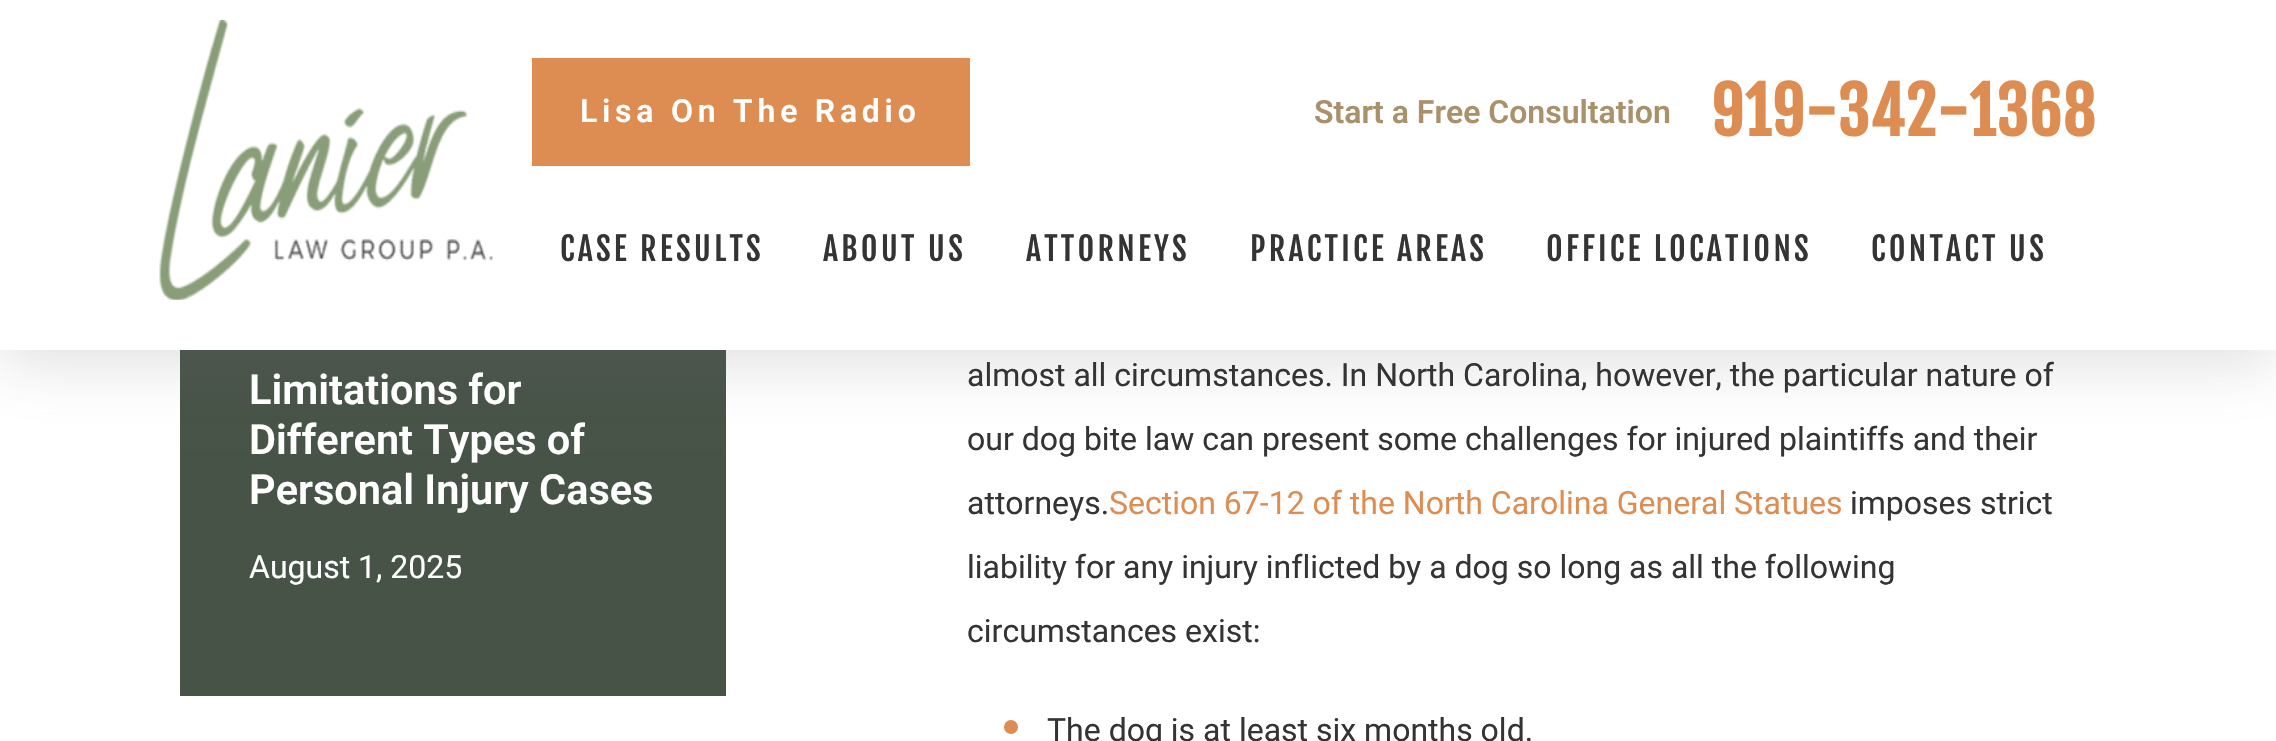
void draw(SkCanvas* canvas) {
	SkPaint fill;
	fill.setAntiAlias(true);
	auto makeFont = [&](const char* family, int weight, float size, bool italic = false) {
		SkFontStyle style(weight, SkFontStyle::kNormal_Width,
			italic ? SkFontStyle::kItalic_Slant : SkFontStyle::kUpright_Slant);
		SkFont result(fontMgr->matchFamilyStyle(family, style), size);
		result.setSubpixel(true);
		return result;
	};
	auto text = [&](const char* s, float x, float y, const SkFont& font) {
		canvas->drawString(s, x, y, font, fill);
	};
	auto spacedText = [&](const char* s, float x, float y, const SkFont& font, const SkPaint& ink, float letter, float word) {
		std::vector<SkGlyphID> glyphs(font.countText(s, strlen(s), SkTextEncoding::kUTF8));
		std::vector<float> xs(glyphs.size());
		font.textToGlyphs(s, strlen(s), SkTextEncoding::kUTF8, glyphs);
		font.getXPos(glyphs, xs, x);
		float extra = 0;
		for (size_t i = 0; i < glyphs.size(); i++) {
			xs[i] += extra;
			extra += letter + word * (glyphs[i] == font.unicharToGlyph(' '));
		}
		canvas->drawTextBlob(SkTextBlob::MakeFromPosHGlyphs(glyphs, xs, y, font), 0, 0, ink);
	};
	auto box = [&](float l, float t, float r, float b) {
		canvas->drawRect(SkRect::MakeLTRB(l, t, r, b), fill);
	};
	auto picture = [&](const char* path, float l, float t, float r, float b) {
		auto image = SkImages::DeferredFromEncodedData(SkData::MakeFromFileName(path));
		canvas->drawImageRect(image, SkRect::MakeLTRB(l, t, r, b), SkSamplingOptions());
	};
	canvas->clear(0xFFFFFFFF);
	fill.setColor(0xFF485348);
	box(180, 350, 726, 696);
	fill.setColor(0x3364646F);
	fill.setMaskFilter(SkMaskFilter::MakeBlur(kNormal_SkBlurStyle, 29));
	canvas->drawRect(SkRect::MakeLTRB(0, 14, 2276, 364), fill);
	fill.setMaskFilter(nullptr);
	fill.setColor(0xFFFFFFFF);
	box(0, 0, 2276, 350);
	picture("image0.png", 159, 20, 493, 300);
	fill.setColor(0xFFDE8D52);
	box(532, 58, 970, 166);
	canvas->drawCircle(1011, 727, 7, fill);
	auto font1 = makeFont("Roboto", 600, 32);
	fill.setColor(0xFFFFFFFF);
	spacedText("Lisa On The Radio", 580, 122, font1, fill, 4.75f, 0);
	fill.setColor(0xFFA9916B);
	text("Start a Free Consultation", 1314, 123, font1);
	auto font2 = makeFont("Fjalla One", 700, 64);
	fill.setColor(0xFFDE8D52);
	spacedText("919-342-1368", 1711, 136, font2, fill, 1.25f, 0);
	auto font3 = makeFont("Fjalla One", 400, 32);
	fill.setColor(0xFF343434);
	spacedText("CASE RESULTS", 560, 261, font3, fill, 3.25f, 0);
	spacedText("ABOUT US", 823, 261, font3, fill, 3.25f, 0);
	spacedText("ATTORNEYS", 1026, 261, font3, fill, 3.25f, 0);
	spacedText("PRACTICE AREAS", 1250, 261, font3, fill, 3.25f, 0);
	spacedText("OFFICE LOCATIONS", 1546, 261, font3, fill, 3.25f, 0);
	spacedText("CONTACT US", 1871, 261, font3, fill, 3.25f, 0);
	auto font4 = makeFont("Roboto", 600, 41.5f);
	fill.setColor(0xFFFFFFFF);
	text("Limitations for", 249, 404, font4);
	text("Different Types of", 249, 454, font4);
	text("Personal Injury Cases", 249, 504, font4);
	auto font5 = makeFont("Roboto", 400, 32);
	text("August 1, 2025", 249, 578, font5);
	fill.setColor(0xFF343434);
	text("almost all circumstances. In North Carolina, however, the particular nature of", 967, 386, font5);
	text("our dog bite law can present some challenges for injured plaintiffs and their", 967, 450, font5);
	text("attorneys.", 967, 514, font5);
	fill.setColor(0xFFDE8D52);
	text("Section 67-12 of the North Carolina General Statues", 1109, 514, font5);
	fill.setColor(0xFF343434);
	text("imposes strict", 1850, 514, font5);
	text("liability for any injury inflicted by a dog so long as all the following", 967, 578, font5);
	text("circumstances exist:", 967, 642, font5);
	text("The dog is at least six months old.", 1047, 741, font5);
}
